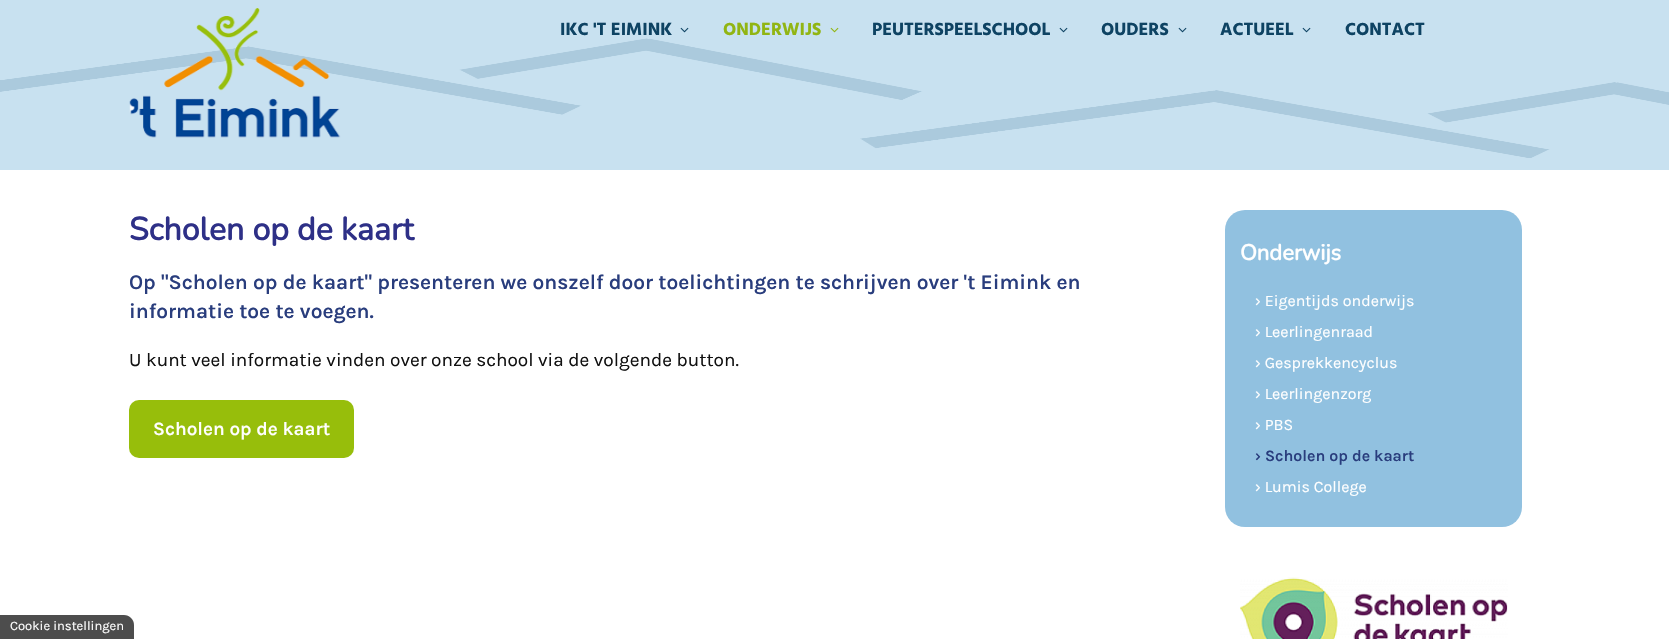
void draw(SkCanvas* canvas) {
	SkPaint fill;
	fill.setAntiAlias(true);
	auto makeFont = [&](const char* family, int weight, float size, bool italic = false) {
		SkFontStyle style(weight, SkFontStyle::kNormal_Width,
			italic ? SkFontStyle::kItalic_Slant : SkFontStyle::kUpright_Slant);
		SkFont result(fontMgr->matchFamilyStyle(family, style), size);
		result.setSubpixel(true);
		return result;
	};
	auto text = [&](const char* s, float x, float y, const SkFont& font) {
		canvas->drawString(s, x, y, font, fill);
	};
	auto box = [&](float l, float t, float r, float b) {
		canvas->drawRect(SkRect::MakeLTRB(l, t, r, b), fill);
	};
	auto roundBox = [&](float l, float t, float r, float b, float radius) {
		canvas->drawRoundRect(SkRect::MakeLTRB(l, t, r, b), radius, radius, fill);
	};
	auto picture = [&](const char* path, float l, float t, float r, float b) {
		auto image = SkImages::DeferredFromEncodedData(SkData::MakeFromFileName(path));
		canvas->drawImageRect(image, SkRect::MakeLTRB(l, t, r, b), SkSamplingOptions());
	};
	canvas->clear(0xFFFFFFFF);
	fill.setColor(0xFFC8E1F0);
	box(0, 0, 1669, 170);
	picture("image0.png", 0, 38, 1669, 158);
	picture("image1.png", 129, 8, 341, 138);
	picture("image2.png", 680, 27, 689, 33);
	picture("image3.png", 830, 27, 839, 33);
	picture("image2.png", 1059, 27, 1068, 33);
	picture("image2.png", 1178, 27, 1187, 33);
	picture("image2.png", 1302, 27, 1311, 33);
	fill.setColor(0xFF97BE0B);
	roundBox(129, 400, 354, 458, 10);
	fill.setColor(0xFF91C1E0);
	roundBox(1225, 210, 1522, 527, 20);
	picture("image4.png", 1240, 577, 1508, 639);
	fill.setColor(0xFF4D4D4D);
	canvas->drawPath(SkPathBuilder().moveTo(0, 615).lineTo(124, 615).cubicTo(129.5f, 615, 134, 619.5f, 134, 625).lineTo(134, 639).lineTo(0, 639).close().detach(), fill);
	auto font1 = makeFont("Hind Siliguri", 700, 18);
	fill.setColor(0xFF0E4363);
	text("IKC 'T EIMINK", 560, 35, font1);
	fill.setColor(0xFF91B513);
	text("ONDERWIJS", 723, 35, font1);
	fill.setColor(0xFF0E4363);
	text("PEUTERSPEELSCHOOL", 872, 35, font1);
	text("OUDERS", 1101, 35, font1);
	text("ACTUEEL", 1220, 35, font1);
	text("CONTACT", 1345, 35, font1);
	auto font2 = makeFont("Nunito", 700, 32);
	fill.setColor(0xFF2E3087);
	text("Scholen op de kaart", 129, 240, font2);
	auto font3 = makeFont("Karla", 600, 21);
	fill.setColor(0xFF293D7D);
	text("Op \"Scholen op de kaart\" presenteren we onszelf door toelichtingen te schrijven over 't Eimink en", 129, 289, font3);
	text("informatie toe te voegen.", 129, 318, font3);
	auto font4 = makeFont("Karla", 400, 19);
	fill.setColor(0xFF111111);
	text("U kunt veel informatie vinden over onze school via de volgende button.", 129, 366, font4);
	auto font5 = makeFont("Karla", 600, 19);
	fill.setColor(0xFFFFFFFF);
	text("Scholen op de kaart", 153, 435, font5);
	auto font6 = makeFont("Nunito", 700, 22);
	text("Onderwijs", 1240, 260, font6);
	auto font7 = makeFont("Karla", 400, 16);
	text("› Eigentijds onderwijs", 1255, 306, font7);
	text("› Leerlingenraad", 1255, 337, font7);
	text("› Gesprekkencyclus", 1255, 368, font7);
	text("› Leerlingenzorg", 1255, 399, font7);
	text("› PBS", 1255, 430, font7);
	auto font8 = makeFont("Karla", 600, 16);
	fill.setColor(0xFF293D7D);
	text("› Scholen op de kaart", 1255, 461, font8);
	fill.setColor(0xFFFFFFFF);
	text("› Lumis College", 1255, 492, font7);
	auto font9 = makeFont("Karla", 400, 13);
	text("Cookie instellingen", 10, 630, font9);
}
